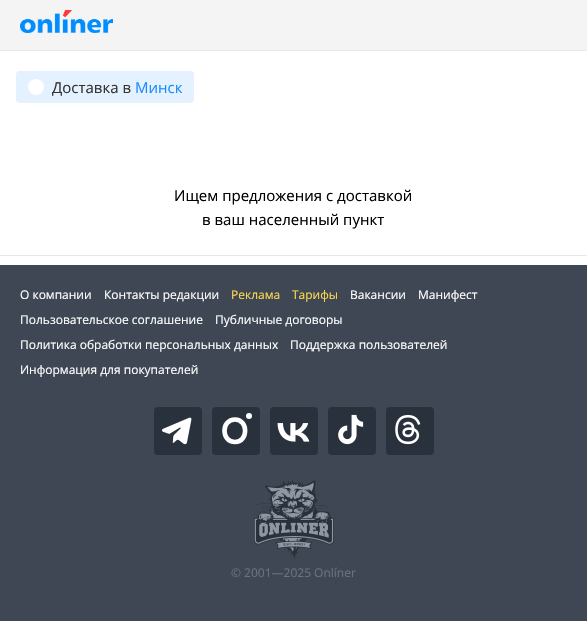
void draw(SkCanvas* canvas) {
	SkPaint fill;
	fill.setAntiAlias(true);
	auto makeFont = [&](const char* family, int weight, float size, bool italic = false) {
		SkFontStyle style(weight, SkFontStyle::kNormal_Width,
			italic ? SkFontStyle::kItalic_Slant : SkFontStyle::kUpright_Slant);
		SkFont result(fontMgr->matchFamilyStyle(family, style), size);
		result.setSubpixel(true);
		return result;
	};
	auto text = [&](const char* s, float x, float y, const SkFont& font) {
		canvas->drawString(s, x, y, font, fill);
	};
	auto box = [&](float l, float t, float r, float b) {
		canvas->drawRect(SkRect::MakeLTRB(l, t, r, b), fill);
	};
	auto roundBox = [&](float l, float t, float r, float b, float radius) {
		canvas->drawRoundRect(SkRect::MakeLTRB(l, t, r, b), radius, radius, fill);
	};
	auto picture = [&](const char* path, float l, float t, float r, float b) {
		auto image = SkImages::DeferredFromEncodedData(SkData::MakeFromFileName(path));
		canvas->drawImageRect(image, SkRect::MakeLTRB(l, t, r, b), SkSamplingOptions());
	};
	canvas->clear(0xFF3E4753);
	fill.setColor(0xFFF4F4F4);
	box(0, 0, 587, 50);
	fill.setColor(0xFFE8E8E8);
	box(0, 50, 587, 51);
	picture("image0.png", 20, 10, 113, 33);
	fill.setColor(0xFFFFFFFF);
	box(0, 51, 587, 265);
	fill.setColor(0xFFE7E7E7);
	box(0, 255, 587, 256);
	fill.setColor(0xFFE4F2FF);
	roundBox(16, 71, 194, 103, 4);
	fill.setColor(0xFFFFFFFF);
	canvas->drawCircle(36, 87, 8, fill);
	fill.setColor(0xFF28313C);
	roundBox(154, 407, 202, 455, 4);
	picture("image1.png", 162, 417, 192, 445);
	roundBox(212, 407, 260, 455, 4);
	fill.setStyle(SkPaint::kStroke_Style);
	fill.setStrokeWidth(4.6f);
	fill.setColor(0xFFFFFFFF);
	canvas->drawPath(SkPathBuilder().moveTo(235, 419.5f).cubicTo(248.5f, 419.5f, 248.5f, 442, 235, 442).cubicTo(221, 442, 221, 419.5f, 235, 419.5f).close().detach(), fill);
	fill.setStyle(SkPaint::kFill_Style);
	canvas->drawCircle(249, 416, 3, fill);
	fill.setColor(0xFF28313C);
	roundBox(270, 407, 318, 455, 4);
	picture("image2.png", 277, 423, 310, 442);
	roundBox(328, 407, 376, 455, 4);
	picture("image3.png", 338, 414, 364, 445);
	roundBox(386, 407, 434, 455, 4);
	picture("image4.png", 395, 414, 421, 445);
	picture("image5.png", 254, 480, 334, 558);
	auto font1 = makeFont("Open Sans", 400, 15);
	fill.setColor(0xFF333333);
	text("Доставка в", 52, 93, font1);
	fill.setColor(0xFF198CFF);
	text("Минск", 135, 93, font1);
	fill.setColor(0xFF000000);
	text("Ищем предложения с доставкой", 174, 201, font1);
	text("в ваш населенный пункт", 202, 225, font1);
	auto font2 = makeFont("Open Sans", 400, 12);
	fill.setColor(0xFFFFFFFF);
	text("О компании", 20, 299, font2);
	text("Контакты редакции", 104, 299, font2);
	fill.setColor(0xFFFFDA50);
	text("Реклама", 231, 299, font2);
	text("Тарифы", 292, 299, font2);
	fill.setColor(0xFFFFFFFF);
	text("Вакансии", 350, 299, font2);
	text("Манифест", 418, 299, font2);
	text("Пользовательское соглашение", 20, 324, font2);
	text("Публичные договоры", 215, 324, font2);
	text("Политика обработки персональных данных", 20, 349, font2);
	text("Поддержка пользователей", 290, 349, font2);
	text("Информация для покупателей", 20, 374, font2);
	fill.setColor(0xFF6B737F);
	text("© 2001—2025 Onlíner", 231, 577, font2);
}
